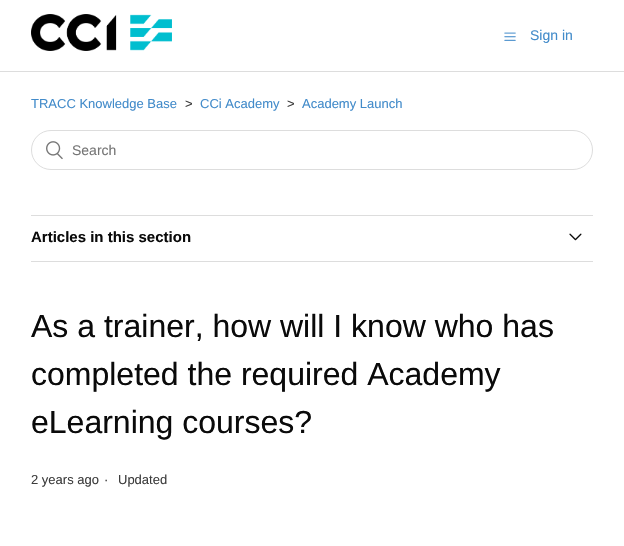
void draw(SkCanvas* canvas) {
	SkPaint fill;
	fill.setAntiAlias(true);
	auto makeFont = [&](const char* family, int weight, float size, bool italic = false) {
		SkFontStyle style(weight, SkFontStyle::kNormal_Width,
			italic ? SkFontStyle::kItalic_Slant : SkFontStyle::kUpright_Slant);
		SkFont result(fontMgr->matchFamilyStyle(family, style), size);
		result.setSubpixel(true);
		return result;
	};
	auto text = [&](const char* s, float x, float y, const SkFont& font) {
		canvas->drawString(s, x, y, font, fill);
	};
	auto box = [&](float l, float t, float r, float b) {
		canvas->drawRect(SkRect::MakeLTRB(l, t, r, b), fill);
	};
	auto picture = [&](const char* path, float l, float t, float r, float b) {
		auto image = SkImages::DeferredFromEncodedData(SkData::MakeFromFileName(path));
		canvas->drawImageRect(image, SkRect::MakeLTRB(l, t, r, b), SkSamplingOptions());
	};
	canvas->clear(0xFFFFFFFF);
	picture("image0.png", 31, 14, 172, 51);
	picture("image1.png", 504, 32, 516, 41);
	fill.setColor(0xFFDDDDDD);
	box(0, 71, 624, 72);
	fill.setStyle(SkPaint::kStroke_Style);
	fill.setStrokeWidth(1);
	canvas->drawRoundRect(SkRect::MakeLTRB(31.5f, 130.5f, 592.5f, 169.5f), 19.5f, 19.5f, fill);
	picture("image2.png", 46, 141, 63, 160);
	fill.setStyle(SkPaint::kFill_Style);
	box(31, 215, 593, 216);
	box(31, 261, 593, 262);
	picture("image3.png", 569, 233, 582, 241);
	auto font1 = makeFont("Liberation Sans", 400, 14);
	fill.setColor(0xFF428BCA);
	text("Sign in", 530, 40, font1);
	auto font2 = makeFont("Liberation Sans", 400, 13);
	text("TRACC Knowledge Base", 31, 108, font2);
	fill.setColor(0xFF3D3D3D);
	text(">", 185, 108, font2);
	fill.setColor(0xFF428BCA);
	text("CCi Academy", 200, 108, font2);
	fill.setColor(0xFF3D3D3D);
	text(">", 287, 108, font2);
	fill.setColor(0xFF428BCA);
	text("Academy Launch", 302, 108, font2);
	fill.setColor(0xFF757575);
	text("Search", 72, 155, font1);
	auto font3 = makeFont("Liberation Sans", 700, 15);
	fill.setColor(0xFF0A0A0A);
	text("Articles in this section", 31, 242, font3);
	auto font4 = makeFont("Liberation Sans", 400, 32);
	text("As a trainer, how will I know who has", 31, 337, font4);
	text("completed the required Academy", 31, 385, font4);
	text("eLearning courses?", 31, 433, font4);
	fill.setColor(0xFF3D3D3D);
	text("2 years ago", 31, 484, font2);
	text("·", 104, 484, font2);
	text("Updated", 118, 484, font2);
}
